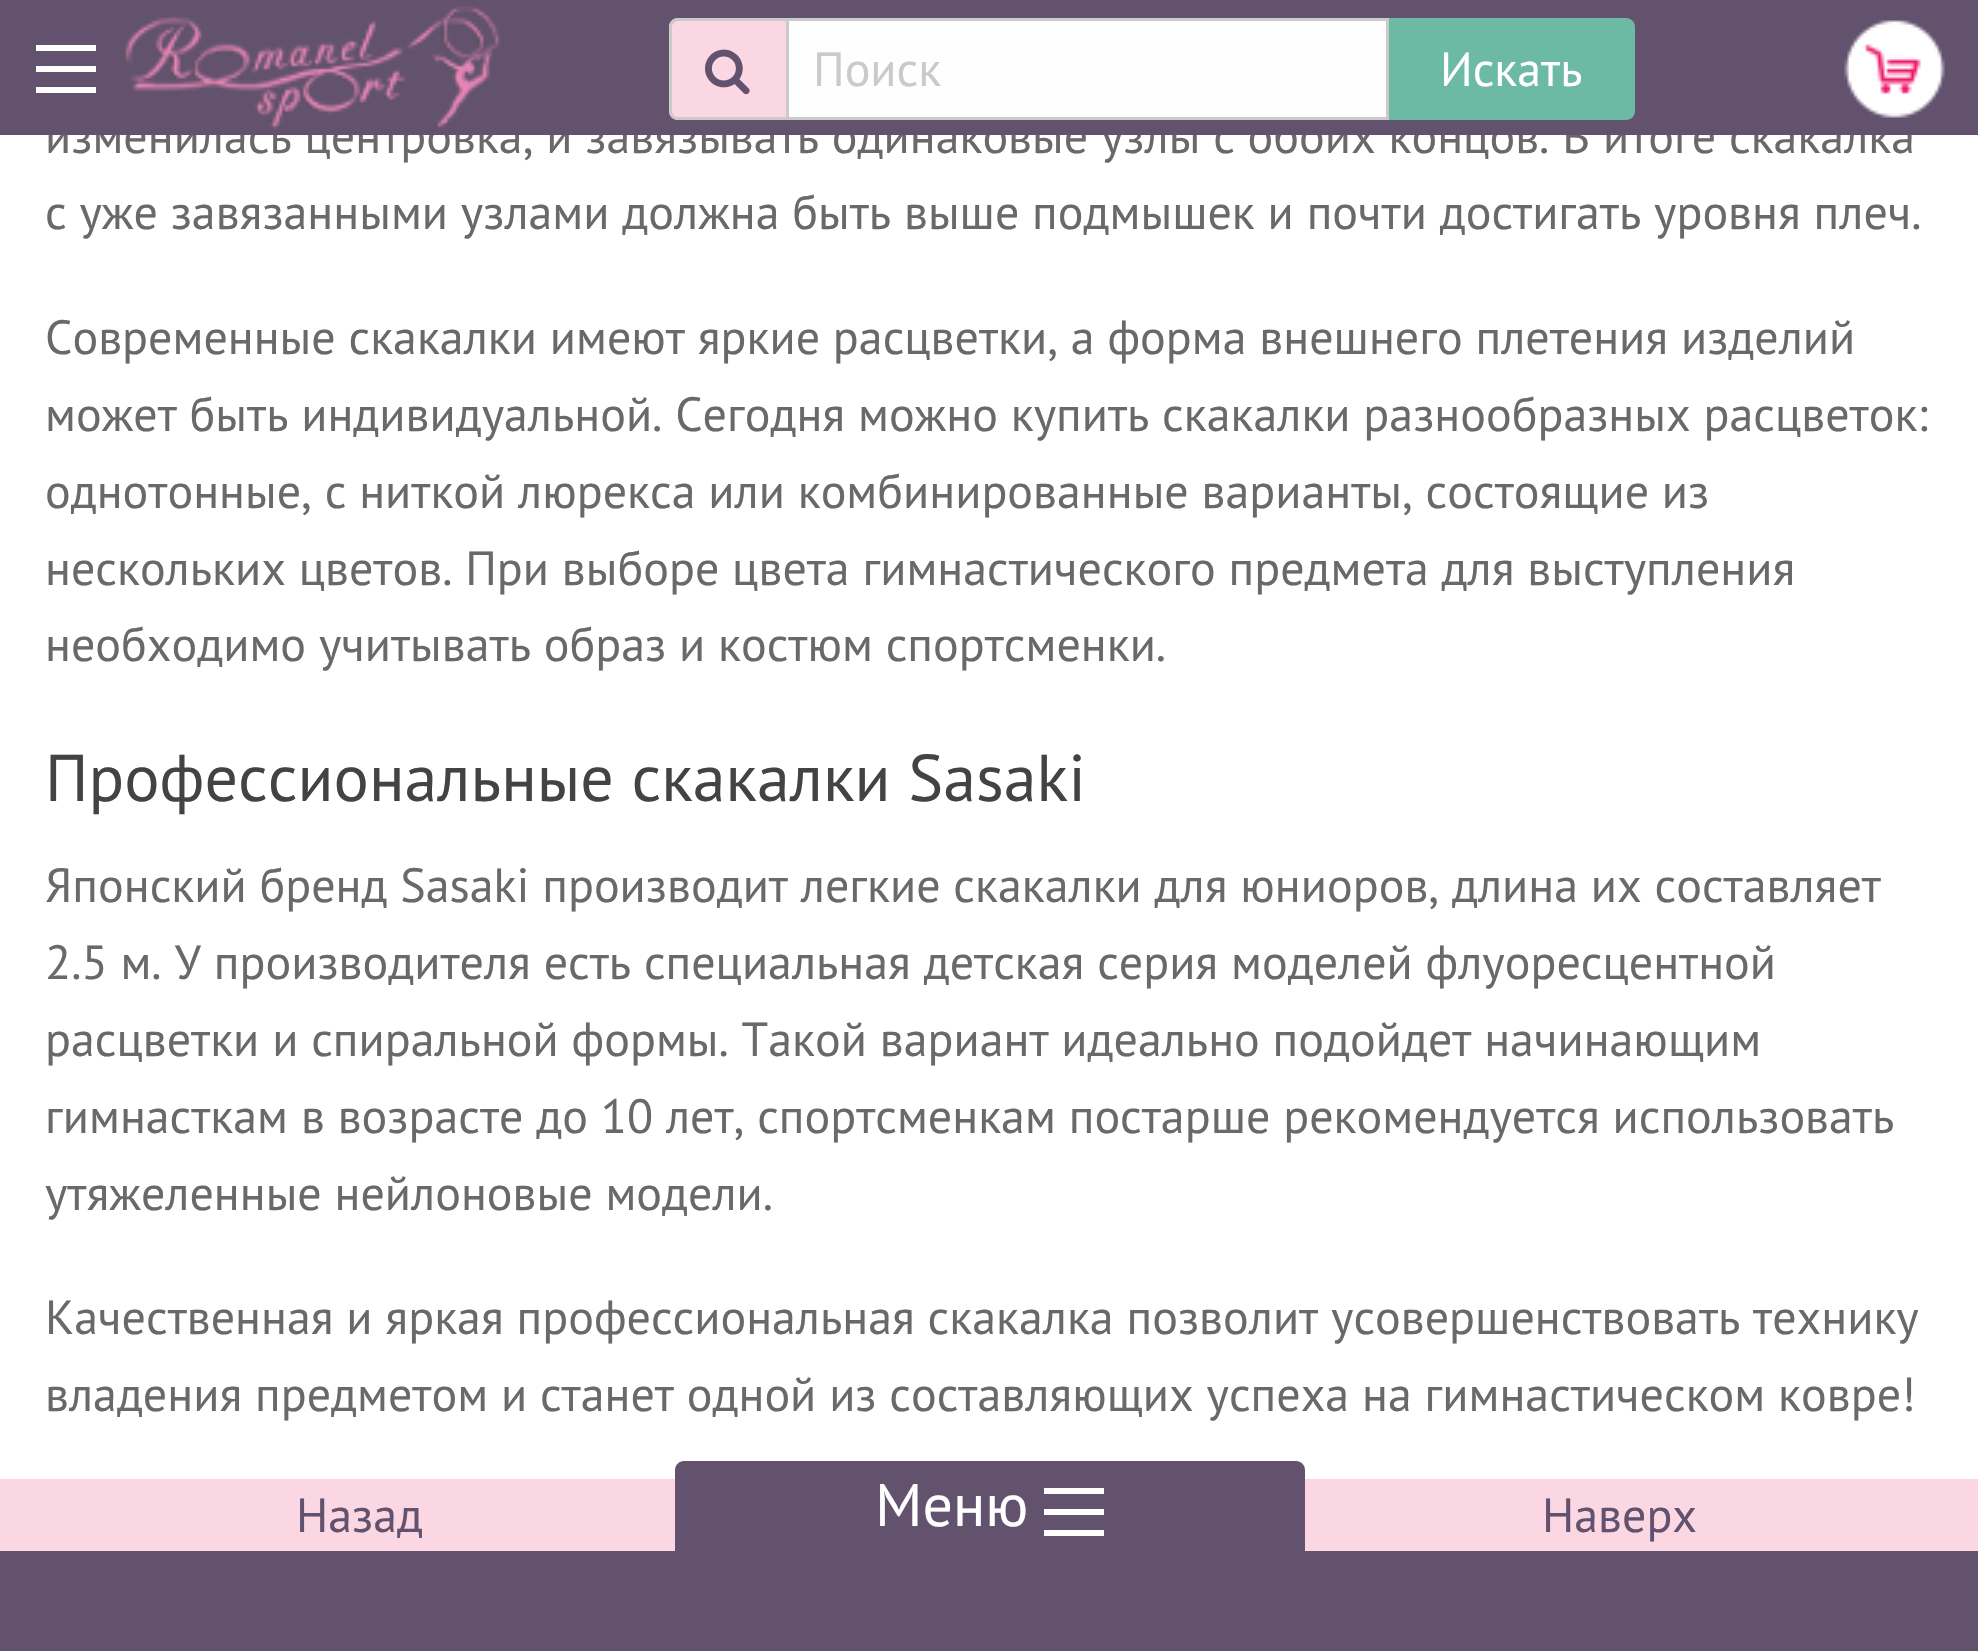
void draw(SkCanvas* canvas) {
	SkPaint fill;
	fill.setAntiAlias(true);
	auto makeFont = [&](const char* family, int weight, float size, bool italic = false) {
		SkFontStyle style(weight, SkFontStyle::kNormal_Width,
			italic ? SkFontStyle::kItalic_Slant : SkFontStyle::kUpright_Slant);
		SkFont result(fontMgr->matchFamilyStyle(family, style), size);
		result.setSubpixel(true);
		return result;
	};
	auto text = [&](const char* s, float x, float y, const SkFont& font) {
		canvas->drawString(s, x, y, font, fill);
	};
	auto box = [&](float l, float t, float r, float b) {
		canvas->drawRect(SkRect::MakeLTRB(l, t, r, b), fill);
	};
	auto picture = [&](const char* path, float l, float t, float r, float b) {
		auto image = SkImages::DeferredFromEncodedData(SkData::MakeFromFileName(path));
		canvas->drawImageRect(image, SkRect::MakeLTRB(l, t, r, b), SkSamplingOptions());
	};
	canvas->clear(0xFFFFFFFF);
	fill.setColor(0xFFFBD7E4);
	box(0, 1479, 1978, 1551);
	fill.setColor(0xFF63526E);
	canvas->drawPath(SkPathBuilder().moveTo(684, 1461).lineTo(1296, 1461).cubicTo(1301, 1461, 1305, 1465, 1305, 1470).lineTo(1305, 1551).lineTo(675, 1551).lineTo(675, 1470).cubicTo(675, 1465, 679, 1461, 684, 1461).close().detach(), fill);
	fill.setColor(0xFFFEFEFE);
	box(1044, 1530, 1104, 1536);
	box(1044, 1509, 1104, 1515);
	box(1044, 1488, 1104, 1494);
	fill.setColor(0xFF63526E);
	box(0, 1551, 1978, 1651);
	auto font1 = makeFont("PT Sans", 400, 48);
	fill.setColor(0xFF696969);
	text("изменилась центровка, и завязывать одинаковые узлы с обоих концов. В итоге скакалка", 45, 153, font1);
	fill.setColor(0xFF63526E);
	box(0, 0, 1978, 135);
	fill.setColor(0xFFFEFEFE);
	box(36, 45, 96, 51);
	box(36, 66, 96, 72);
	box(36, 87, 96, 93);
	fill.setColor(0xFF6CBAA4);
	canvas->drawPath(SkPathBuilder().moveTo(1389, 18).lineTo(1626, 18).cubicTo(1631, 18, 1635, 22, 1635, 27).lineTo(1635, 111).cubicTo(1635, 116, 1631, 120, 1626, 120).lineTo(1389, 120).close().detach(), fill);
	fill.setColor(0xFFFFFFFF);
	text("Искать", 1440, 86, font1);
	picture("image2.png", 1844, 20, 1945, 118);
	fill.setColor(0xFFFEFEFE);
	canvas->drawRect(SkRect::MakeLTRB(787.5f, 19.5f, 1387.5f, 118.5f), fill);
	fill.setStyle(SkPaint::kStroke_Style);
	fill.setStrokeWidth(3);
	fill.setColor(0xFFCACACA);
	canvas->drawRect(SkRect::MakeLTRB(787.5f, 19.5f, 1387.5f, 118.5f), fill);
	fill.setStyle(SkPaint::kFill_Style);
	text("Поиск", 813, 86, font1);
	fill.setColor(0xFFFBD7E4);
	canvas->drawPath(SkPathBuilder().moveTo(678, 18).lineTo(786, 18).lineTo(786, 120).lineTo(678, 120).cubicTo(673, 120, 669, 116, 669, 111).lineTo(669, 27).cubicTo(669, 22, 673, 18, 678, 18).close().detach(), fill);
	fill.setColor(0xFFCACACA);
	canvas->drawPath(SkPathBuilder(SkPathFillType::kEvenOdd).moveTo(678, 18).lineTo(786, 18).lineTo(786, 120).lineTo(678, 120).cubicTo(673, 120, 669, 116, 669, 111).lineTo(669, 27).cubicTo(669, 22, 673, 18, 678, 18).close().moveTo(678, 21).lineTo(786, 21).lineTo(786, 117).lineTo(678, 117).cubicTo(675, 117, 672, 114, 672, 111).lineTo(672, 27).cubicTo(672, 24, 675, 21, 678, 21).close().detach(), fill);
	picture("image1.png", 705, 49, 750, 95);
	picture("image0.png", 124, 6, 501, 130);
	fill.setColor(0xFF696969);
	text("с уже завязанными узлами должна быть выше подмышек и почти достигать уровня плеч.", 45, 229, font1);
	text("Современные скакалки имеют яркие расцветки, а форма внешнего плетения изделий", 45, 354, font1);
	text("может быть индивидуальной. Сегодня можно купить скакалки разнообразных расцветок:", 45, 431, font1);
	text("однотонные, с ниткой люрекса или комбинированные варианты, состоящие из", 45, 508, font1);
	text("нескольких цветов. При выборе цвета гимнастического предмета для выступления", 45, 585, font1);
	text("необходимо учитывать образ и костюм спортсменки.", 45, 661, font1);
	auto font2 = makeFont("PT Sans", 400, 66);
	fill.setColor(0xFF434343);
	text("Профессиональные скакалки Sasaki", 45, 801, font2);
	fill.setColor(0xFF696969);
	text("Японский бренд Sasaki производит легкие скакалки для юниоров, длина их составляет", 45, 902, font1);
	text("2.5 м. У производителя есть специальная детская серия моделей флуоресцентной", 45, 979, font1);
	text("расцветки и спиральной формы. Такой вариант идеально подойдет начинающим", 45, 1056, font1);
	text("гимнасткам в возрасте до 10 лет, спортсменкам постарше рекомендуется использовать", 45, 1133, font1);
	text("утяжеленные нейлоновые модели.", 45, 1210, font1);
	text("Качественная и яркая профессиональная скакалка позволит усовершенствовать технику", 45, 1334, font1);
	text("владения предметом и станет одной из составляющих успеха на гимнастическом ковре!", 45, 1411, font1);
	fill.setColor(0xFF63526E);
	text("Назад", 296, 1532, font1);
	auto font3 = makeFont("PT Sans", 400, 60);
	fill.setColor(0xFFFFFFFF);
	text("Меню", 875, 1526, font3);
	fill.setColor(0xFF63526E);
	text("Наверх", 1542, 1532, font1);
}
